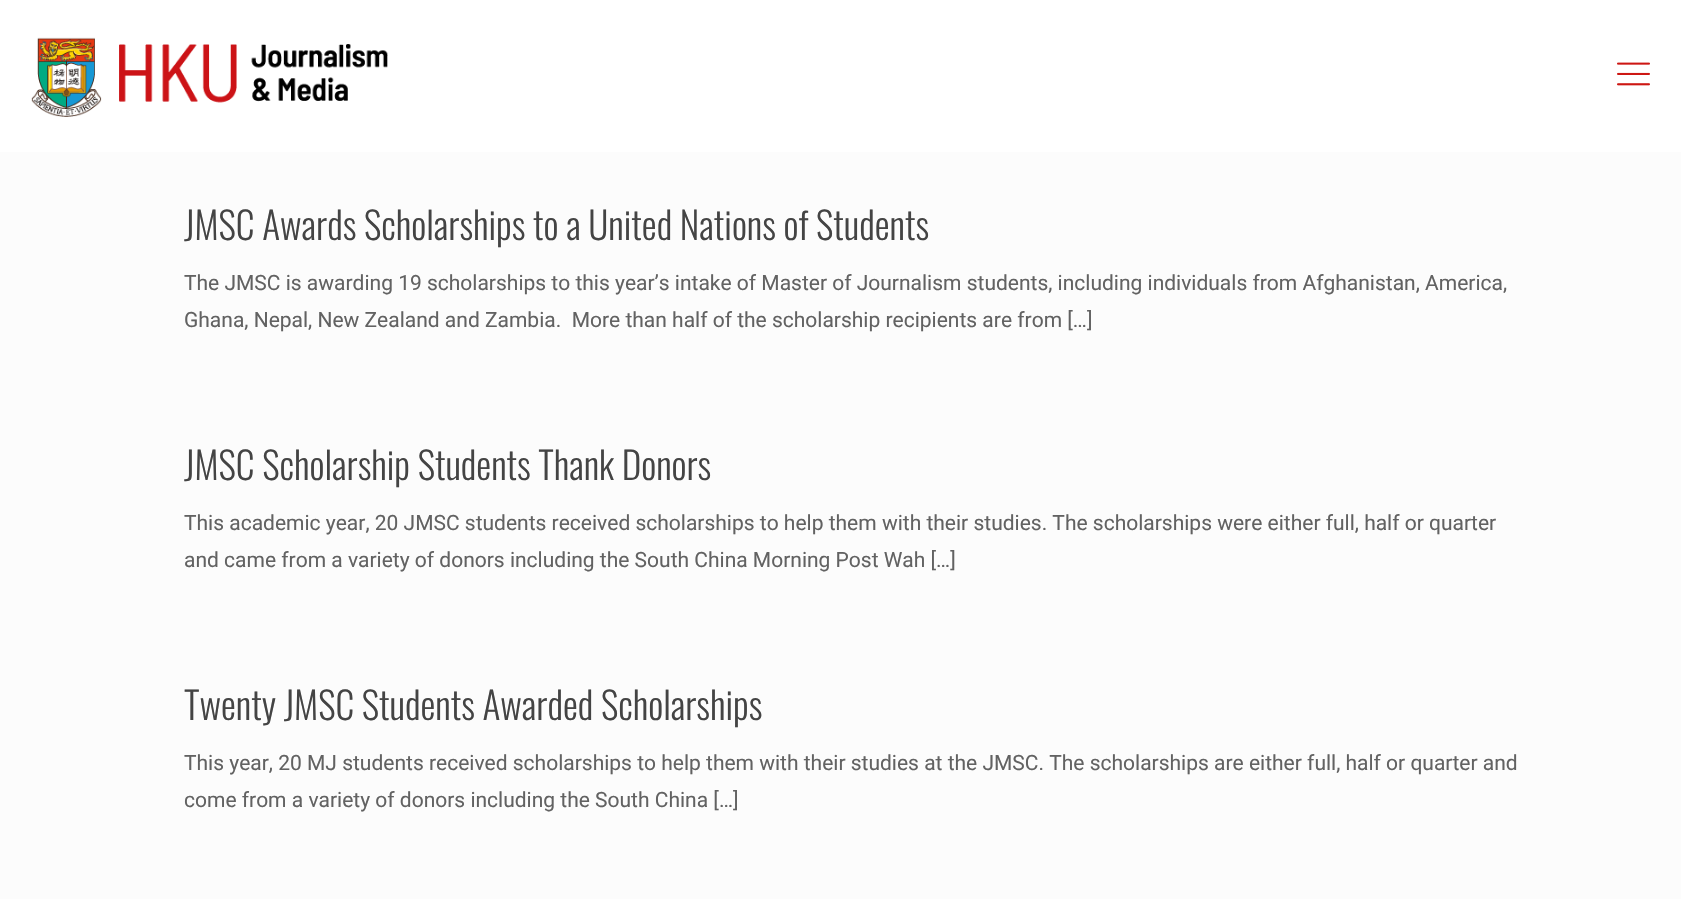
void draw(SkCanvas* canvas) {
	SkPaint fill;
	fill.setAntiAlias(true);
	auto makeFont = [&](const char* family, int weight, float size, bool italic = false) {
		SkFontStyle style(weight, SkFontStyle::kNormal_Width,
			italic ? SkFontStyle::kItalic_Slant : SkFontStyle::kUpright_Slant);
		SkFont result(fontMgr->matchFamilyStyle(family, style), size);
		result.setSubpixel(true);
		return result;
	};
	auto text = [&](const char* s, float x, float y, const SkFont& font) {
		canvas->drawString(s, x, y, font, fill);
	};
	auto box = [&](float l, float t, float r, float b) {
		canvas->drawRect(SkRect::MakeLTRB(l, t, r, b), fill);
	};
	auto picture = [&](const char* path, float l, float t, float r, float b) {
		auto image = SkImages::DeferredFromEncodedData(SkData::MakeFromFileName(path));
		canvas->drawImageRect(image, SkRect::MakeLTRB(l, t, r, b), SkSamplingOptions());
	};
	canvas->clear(0xFFFFFFFF);
	picture("image0.png", 31, 37, 388, 117);
	picture("image1.png", 1617, 62, 1650, 86);
	fill.setColor(0xFFFCFCFC);
	box(0, 152, 1681, 899);
	auto font1 = makeFont("Oswald", 300, 37.5f);
	fill.setColor(0xFF444444);
	text("JMSC Awards Scholarships to a United Nations of Students", 184, 240, font1);
	auto font2 = makeFont("Roboto", 400, 21);
	fill.setColor(0xFF626262);
	text("The JMSC is awarding 19 scholarships to this year’s intake of Master of Journalism students, including individuals from Afghanistan, America,", 184, 290, font2);
	text("Ghana, Nepal, New Zealand and Zambia.  More than half of the scholarship recipients are from […]", 184, 327, font2);
	fill.setColor(0xFF444444);
	text("JMSC Scholarship Students Thank Donors", 184, 480, font1);
	fill.setColor(0xFF626262);
	text("This academic year, 20 JMSC students received scholarships to help them with their studies. The scholarships were either full, half or quarter", 184, 530, font2);
	text("and came from a variety of donors including the South China Morning Post Wah […]", 184, 567, font2);
	fill.setColor(0xFF444444);
	text("Twenty JMSC Students Awarded Scholarships", 184, 720, font1);
	fill.setColor(0xFF626262);
	text("This year, 20 MJ students received scholarships to help them with their studies at the JMSC. The scholarships are either full, half or quarter and", 184, 770, font2);
	text("come from a variety of donors including the South China […]", 184, 807, font2);
}
